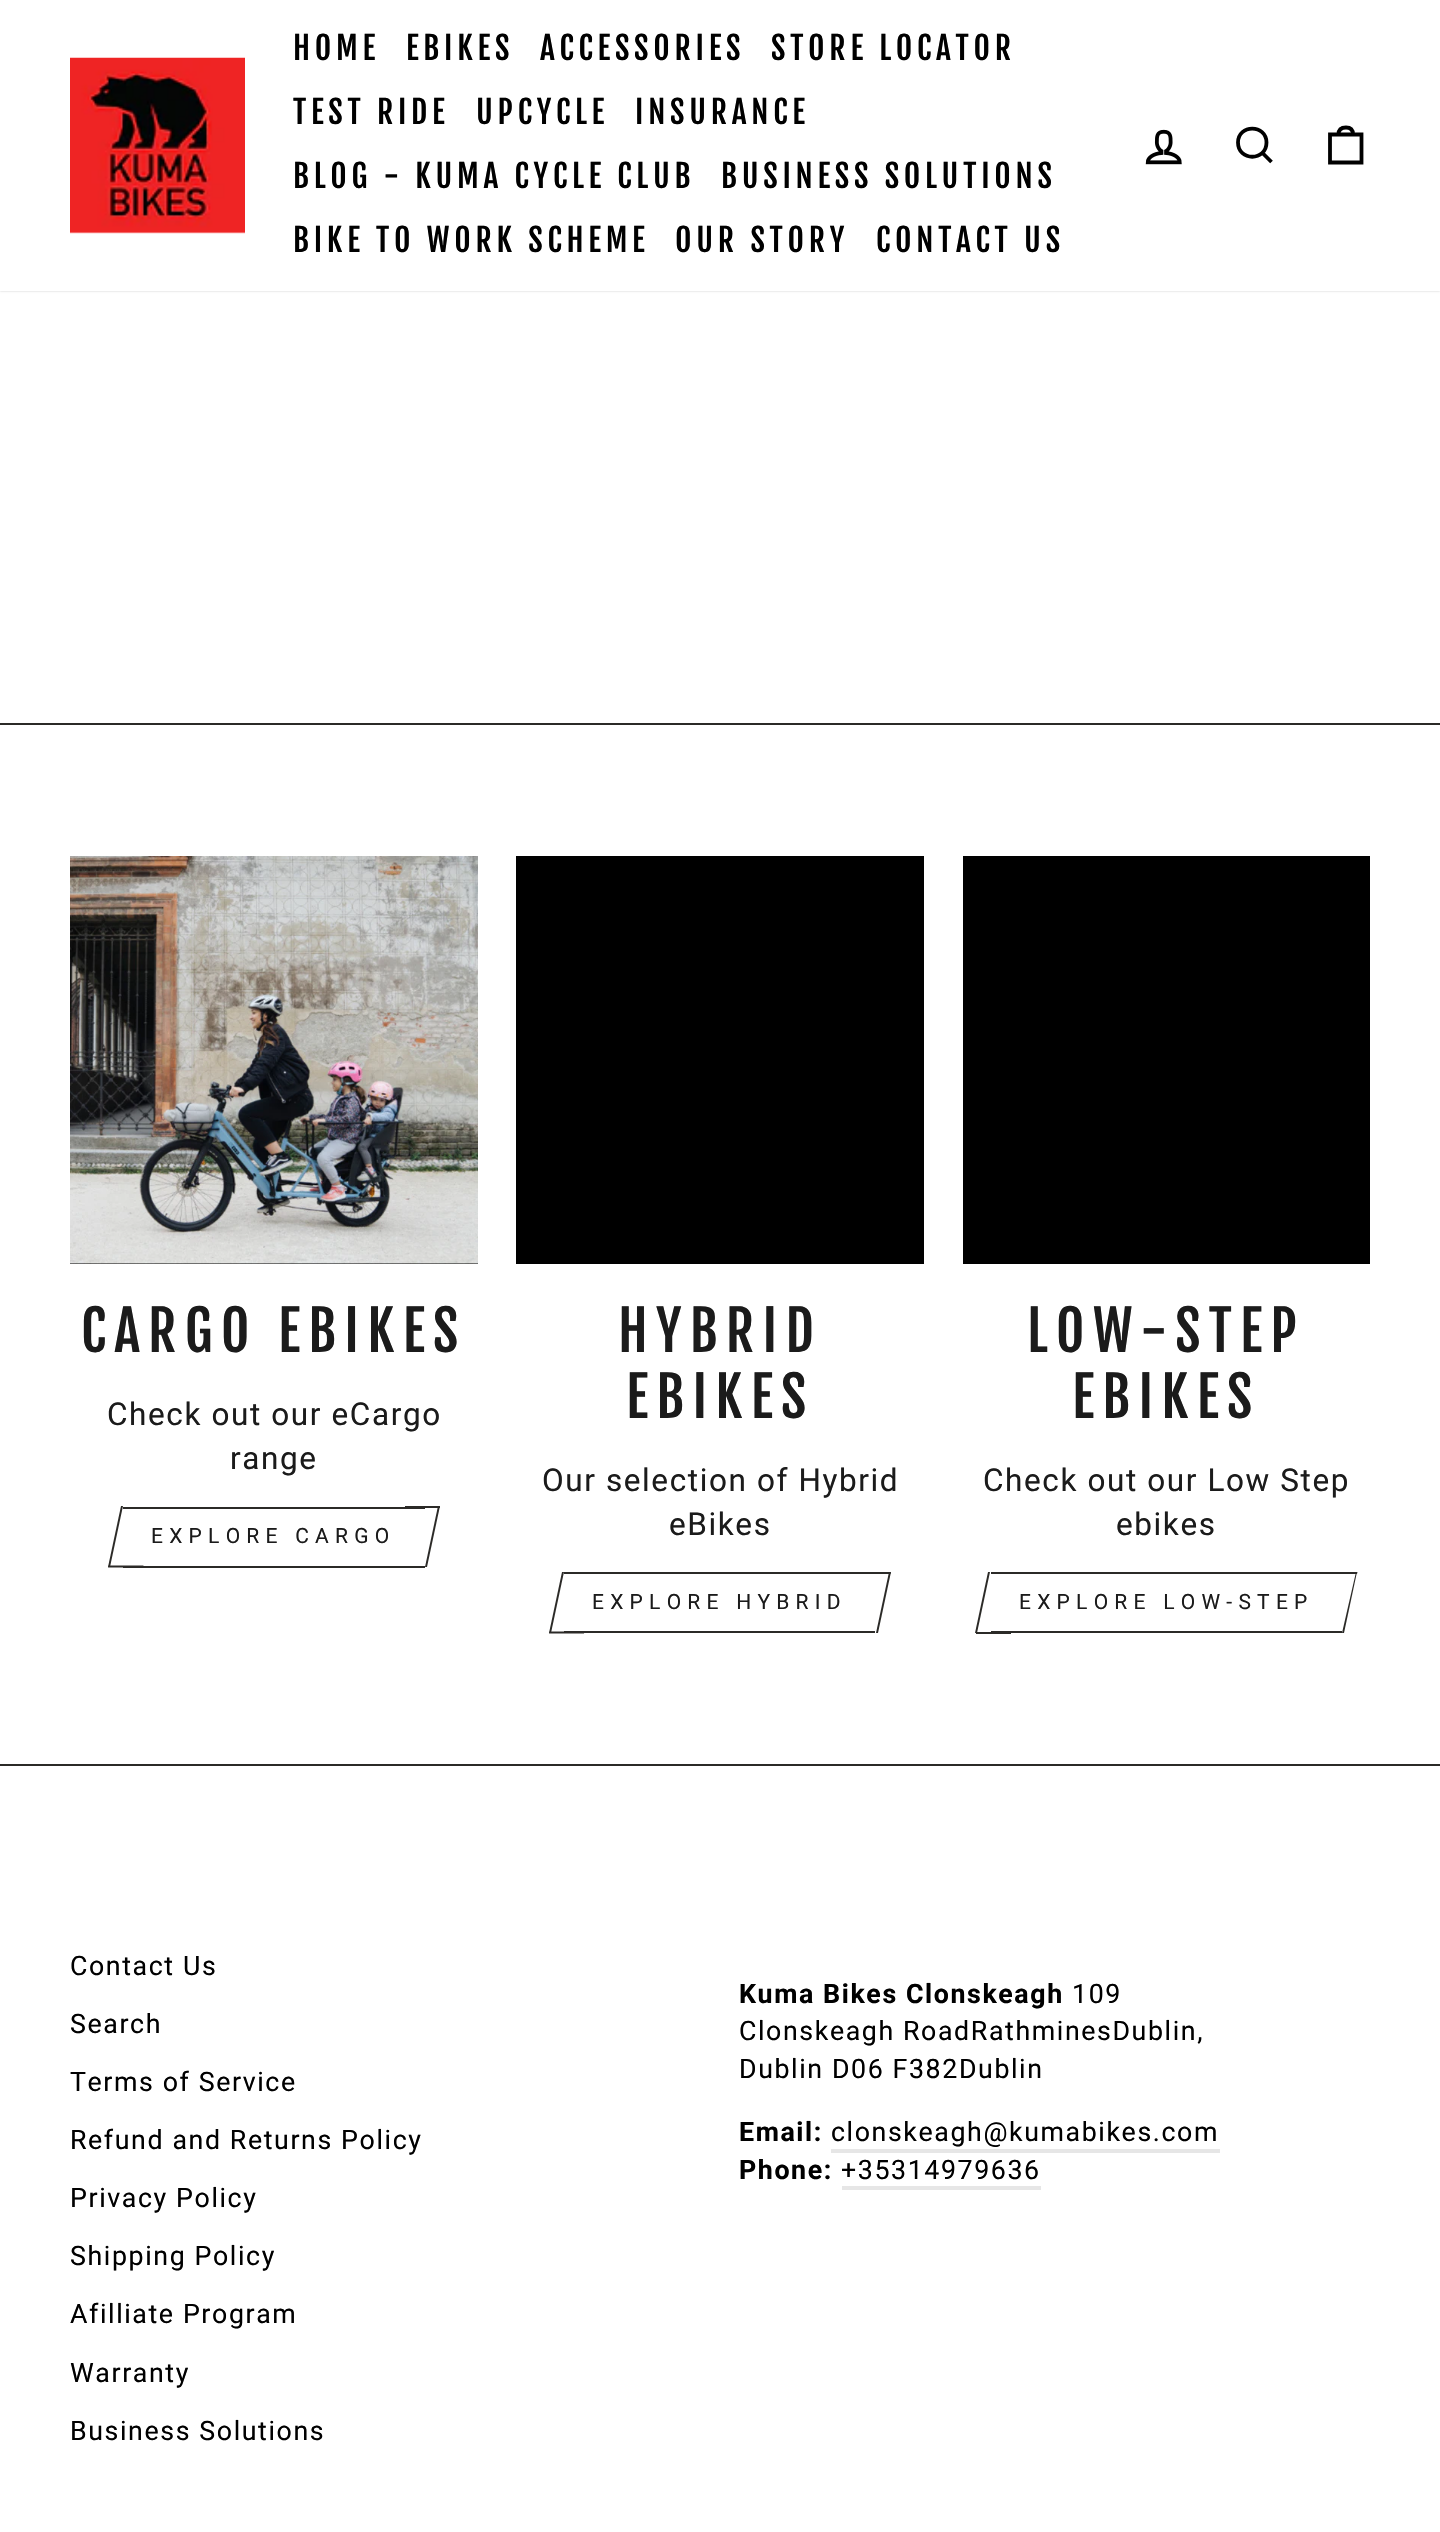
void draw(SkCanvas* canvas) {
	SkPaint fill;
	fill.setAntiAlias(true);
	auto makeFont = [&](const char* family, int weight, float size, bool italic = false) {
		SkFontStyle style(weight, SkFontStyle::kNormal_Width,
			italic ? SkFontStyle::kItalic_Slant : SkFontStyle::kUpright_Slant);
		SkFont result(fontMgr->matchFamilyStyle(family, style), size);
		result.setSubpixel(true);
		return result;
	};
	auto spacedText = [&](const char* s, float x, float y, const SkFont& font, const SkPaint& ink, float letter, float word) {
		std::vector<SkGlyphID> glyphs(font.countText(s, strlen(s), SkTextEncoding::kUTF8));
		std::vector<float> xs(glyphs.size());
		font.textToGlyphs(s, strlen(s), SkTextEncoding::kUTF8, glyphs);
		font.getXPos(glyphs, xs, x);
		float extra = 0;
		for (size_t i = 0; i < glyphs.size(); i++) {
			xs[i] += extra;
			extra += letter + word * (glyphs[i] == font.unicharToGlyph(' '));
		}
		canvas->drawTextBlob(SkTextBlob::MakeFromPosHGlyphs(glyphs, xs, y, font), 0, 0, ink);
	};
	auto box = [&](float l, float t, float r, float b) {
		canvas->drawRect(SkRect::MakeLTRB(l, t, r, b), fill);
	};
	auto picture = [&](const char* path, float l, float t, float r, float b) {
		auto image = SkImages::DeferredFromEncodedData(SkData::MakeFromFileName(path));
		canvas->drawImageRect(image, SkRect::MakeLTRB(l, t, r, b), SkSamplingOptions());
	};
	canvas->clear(0xFFFFFFFF);
	fill.setColor(0x33000000);
	fill.setMaskFilter(SkMaskFilter::MakeBlur(kNormal_SkBlurStyle, 1));
	canvas->drawRect(SkRect::MakeLTRB(0, 0, 1440, 291), fill);
	fill.setMaskFilter(nullptr);
	fill.setColor(0xFFFFFFFF);
	box(0, 0, 1440, 291);
	picture("image0.png", 70, 57, 245, 234);
	picture("image1.png", 1145, 129, 1182, 165);
	fill.setStyle(SkPaint::kStroke_Style);
	fill.setStrokeWidth(3.8f);
	fill.setColor(0xFF000000);
	canvas->drawPath(SkPathBuilder().moveTo(1266.5f, 142.5f).cubicTo(1266.5f, 161.5f, 1238, 161.5f, 1238, 142.5f).cubicTo(1238, 124, 1266.5f, 124, 1266.5f, 142.5f).close().moveTo(1271.5f, 162).lineTo(1262.5f, 153).detach(), fill);
	canvas->drawPath(SkPathBuilder().moveTo(1330, 134.5f).lineTo(1361.5f, 134.5f).lineTo(1361.5f, 162.5f).lineTo(1330, 162.5f).close().moveTo(1338.5f, 134.5f).cubicTo(1338.5f, 129, 1341.5f, 127.5f, 1346, 127.5f).cubicTo(1350, 127.5f, 1353, 129, 1353, 134.5f).detach(), fill);
	fill.setStyle(SkPaint::kFill_Style);
	fill.setColor(0xFF2B2A27);
	box(0, 723, 1440, 725);
	fill.setColor(0xFF000000);
	box(70, 1263, 478, 1264);
	picture("image2.png", 70, 856, 478, 1264);
	fill.setColor(0xFF2B2A27);
	box(123, 1507, 425, 1509);
	box(123, 1566, 425, 1568);
	canvas->drawPath(SkPathBuilder().moveTo(108.5f, 1565.5f).lineTo(143.5f, 1565.5f).lineTo(143, 1567.5f).lineTo(108, 1567.5f).close().detach(), fill);
	canvas->drawPath(SkPathBuilder().moveTo(121, 1506).lineTo(123, 1506).lineTo(110, 1567).lineTo(108, 1567).close().detach(), fill);
	box(405, 1506, 440, 1508);
	canvas->drawPath(SkPathBuilder().moveTo(438, 1506).lineTo(440, 1506).lineTo(427, 1567).lineTo(425, 1567).close().detach(), fill);
	fill.setColor(0xFF000000);
	box(516, 856, 924, 1264);
	fill.setColor(0xFF2B2A27);
	box(564, 1572, 856, 1574);
	box(564, 1631, 875, 1633);
	canvas->drawPath(SkPathBuilder().moveTo(549.5f, 1631.5f).lineTo(584.5f, 1631.5f).lineTo(584, 1633.5f).lineTo(549, 1633.5f).close().detach(), fill);
	canvas->drawPath(SkPathBuilder().moveTo(562, 1572).lineTo(564, 1572).lineTo(551, 1633).lineTo(549, 1633).close().detach(), fill);
	canvas->drawPath(SkPathBuilder().moveTo(856, 1572).lineTo(891, 1572).lineTo(890.5f, 1574).lineTo(855.5f, 1574).close().detach(), fill);
	canvas->drawPath(SkPathBuilder().moveTo(889, 1572).lineTo(891, 1572).lineTo(878, 1633).lineTo(876, 1633).close().detach(), fill);
	fill.setColor(0xFF000000);
	box(963, 856, 1370, 1264);
	fill.setColor(0xFF2B2A27);
	box(991, 1572, 1323, 1574);
	box(991, 1631, 1342, 1633);
	box(976, 1632, 1011, 1634);
	canvas->drawPath(SkPathBuilder().moveTo(988, 1572).lineTo(990, 1572).lineTo(977, 1633).lineTo(975, 1633).close().detach(), fill);
	canvas->drawPath(SkPathBuilder().moveTo(1322.5f, 1572).lineTo(1357.5f, 1572).lineTo(1357, 1574).lineTo(1322, 1574).close().detach(), fill);
	canvas->drawPath(SkPathBuilder().moveTo(1356, 1572).lineTo(1357, 1572).lineTo(1344, 1633).lineTo(1342, 1633).close().detach(), fill);
	box(0, 1764, 1440, 1766);
	fill.setColor(0xFFE6E6E6);
	box(831, 2149, 1220, 2153);
	box(842, 2186, 1041, 2190);
	auto font1 = makeFont("Fjalla One", 400, 31.5f);
	fill.setColor(0xFF000000);
	spacedText("HOME", 293, 60, font1, fill, 4.75f, 0);
	spacedText("EBIKES", 406, 60, font1, fill, 4.75f, 0);
	spacedText("ACCESSORIES", 540, 60, font1, fill, 4.75f, 0);
	spacedText("STORE LOCATOR", 771, 60, font1, fill, 4.75f, 0);
	spacedText("TEST RIDE", 293, 124, font1, fill, 4.75f, 0);
	spacedText("UPCYCLE", 476, 124, font1, fill, 4.75f, 0);
	spacedText("INSURANCE", 635, 124, font1, fill, 4.75f, 0);
	spacedText("BLOG - KUMA CYCLE CLUB", 293, 188, font1, fill, 4.75f, 0);
	spacedText("BUSINESS SOLUTIONS", 721, 188, font1, fill, 4.75f, 0);
	spacedText("BIKE TO WORK SCHEME", 293, 252, font1, fill, 4.75f, 0);
	spacedText("OUR STORY", 675, 252, font1, fill, 4.75f, 0);
	spacedText("CONTACT US", 876, 252, font1, fill, 4.75f, 0);
	auto font2 = makeFont("Fjalla One", 400, 55);
	fill.setColor(0xFF1B1B1B);
	spacedText("CARGO EBIKES", 81, 1352, font2, fill, 8.25f, 0);
	auto font3 = makeFont("Roboto", 400, 31.5f);
	spacedText("Check out our eCargo", 107, 1425, font3, fill, 1.6f, 0);
	spacedText("range", 230, 1469, font3, fill, 1.6f, 0);
	auto font4 = makeFont("Roboto", 400, 21);
	spacedText("EXPLORE CARGO", 151, 1543, font4, fill, 6.25f, 0);
	spacedText("HYBRID", 618, 1352, font2, fill, 8.25f, 0);
	spacedText("EBIKES", 626, 1418, font2, fill, 8.25f, 0);
	spacedText("Our selection of Hybrid", 542, 1491, font3, fill, 1.6f, 0);
	spacedText("eBikes", 669, 1535, font3, fill, 1.6f, 0);
	spacedText("EXPLORE HYBRID", 592, 1609, font4, fill, 6.25f, 0);
	spacedText("LOW-STEP", 1027, 1352, font2, fill, 8.25f, 0);
	spacedText("EBIKES", 1072, 1418, font2, fill, 8.25f, 0);
	spacedText("Check out our Low Step", 983, 1491, font3, fill, 1.6f, 0);
	spacedText("ebikes", 1116, 1535, font3, fill, 1.6f, 0);
	spacedText("EXPLORE LOW-STEP", 1019, 1609, font4, fill, 6.25f, 0);
	auto font5 = makeFont("Roboto", 400, 26.75f);
	fill.setColor(0xFF000000);
	spacedText("Contact Us", 70, 1975, font5, fill, 1.6f, 0);
	spacedText("Search", 70, 2033, font5, fill, 1.6f, 0);
	spacedText("Terms of Service", 70, 2091, font5, fill, 1.6f, 0);
	spacedText("Refund and Returns Policy", 70, 2149, font5, fill, 1.6f, 0);
	spacedText("Privacy Policy", 70, 2207, font5, fill, 1.6f, 0);
	spacedText("Shipping Policy", 70, 2265, font5, fill, 1.6f, 0);
	spacedText("Afilliate Program", 70, 2323, font5, fill, 1.6f, 0);
	spacedText("Warranty", 70, 2382, font5, fill, 1.6f, 0);
	spacedText("Business Solutions", 70, 2440, font5, fill, 1.6f, 0);
	auto font6 = makeFont("Roboto", 700, 26.75f);
	spacedText("Kuma Bikes Clonskeagh", 739, 2003, font6, fill, 1.6f, 0);
	spacedText("109", 1072, 2003, font5, fill, 1.6f, 0);
	spacedText("Clonskeagh RoadRathminesDublin,", 739, 2040, font5, fill, 1.6f, 0);
	spacedText("Dublin D06 F382Dublin", 739, 2078, font5, fill, 1.6f, 0);
	spacedText("Email:", 739, 2141, font6, fill, 1.6f, 0);
	spacedText("clonskeagh@kumabikes.com", 831, 2141, font5, fill, 1.6f, 0);
	spacedText("Phone:", 739, 2179, font6, fill, 1.6f, 0);
	spacedText("+35314979636", 841, 2179, font5, fill, 1.6f, 0);
}
